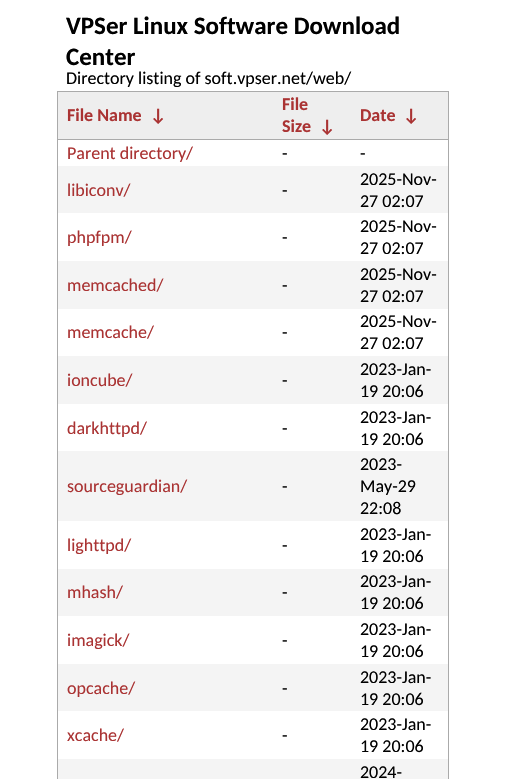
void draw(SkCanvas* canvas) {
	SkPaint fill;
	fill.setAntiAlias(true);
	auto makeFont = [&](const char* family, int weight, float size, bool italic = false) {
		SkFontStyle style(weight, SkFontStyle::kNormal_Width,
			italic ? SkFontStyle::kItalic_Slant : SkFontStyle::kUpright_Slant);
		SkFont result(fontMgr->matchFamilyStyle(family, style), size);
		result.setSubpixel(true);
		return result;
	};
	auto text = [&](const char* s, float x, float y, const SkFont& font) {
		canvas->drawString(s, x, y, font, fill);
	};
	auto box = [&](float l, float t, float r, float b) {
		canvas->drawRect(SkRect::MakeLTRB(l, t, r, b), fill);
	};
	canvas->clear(0xFFFFFFFF);
	fill.setStyle(SkPaint::kStroke_Style);
	fill.setStrokeWidth(1);
	fill.setColor(0xFFAAAAAA);
	canvas->drawRect(SkRect::MakeLTRB(57.5f, 91.5f, 448.5f, 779.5f), fill);
	fill.setStyle(SkPaint::kFill_Style);
	fill.setColor(0xFFEEEEEE);
	box(58, 92, 448, 139);
	fill.setColor(0xFFAAAAAA);
	box(58, 139, 448, 140);
	fill.setColor(0xFFF4F4F4);
	box(58, 166, 448, 213);
	box(58, 261, 448, 309);
	box(58, 356, 448, 404);
	box(58, 451, 448, 521);
	box(58, 569, 448, 616);
	box(58, 664, 448, 711);
	box(58, 759, 448, 779);
	auto font1 = makeFont("Carlito", 700, 25);
	fill.setColor(0xFF000000);
	text("VPSer Linux Software Download", 66, 34, font1);
	text("Center", 66, 65, font1);
	auto font2 = makeFont("Carlito", 400, 18);
	text("Directory listing of soft.vpser.net/web/", 66, 84, font2);
	auto font3 = makeFont("Carlito", 700, 18);
	fill.setColor(0xFFAA3333);
	text("File Name", 67, 121, font3);
	text("↓", 150, 121, font3);
	text("File", 282, 110, font3);
	text("Size", 282, 132, font3);
	text("↓", 319, 132, font3);
	text("Date", 360, 121, font3);
	text("↓", 403, 121, font3);
	text("Parent directory/", 67, 159, font2);
	fill.setColor(0xFF000000);
	text("-", 282, 159, font2);
	text("-", 360, 159, font2);
	fill.setColor(0xFFAA3333);
	text("libiconv/", 67, 196, font2);
	fill.setColor(0xFF000000);
	text("-", 282, 196, font2);
	text("2025-Nov-", 360, 185, font2);
	text("27 02:07", 360, 207, font2);
	fill.setColor(0xFFAA3333);
	text("phpfpm/", 67, 243, font2);
	fill.setColor(0xFF000000);
	text("-", 282, 243, font2);
	text("2025-Nov-", 360, 232, font2);
	text("27 02:07", 360, 254, font2);
	fill.setColor(0xFFAA3333);
	text("memcached/", 67, 291, font2);
	fill.setColor(0xFF000000);
	text("-", 282, 291, font2);
	text("2025-Nov-", 360, 280, font2);
	text("27 02:07", 360, 302, font2);
	fill.setColor(0xFFAA3333);
	text("memcache/", 67, 338, font2);
	fill.setColor(0xFF000000);
	text("-", 282, 338, font2);
	text("2025-Nov-", 360, 327, font2);
	text("27 02:07", 360, 349, font2);
	fill.setColor(0xFFAA3333);
	text("ioncube/", 67, 386, font2);
	fill.setColor(0xFF000000);
	text("-", 282, 386, font2);
	text("2023-Jan-", 360, 375, font2);
	text("19 20:06", 360, 397, font2);
	fill.setColor(0xFFAA3333);
	text("darkhttpd/", 67, 434, font2);
	fill.setColor(0xFF000000);
	text("-", 282, 434, font2);
	text("2023-Jan-", 360, 423, font2);
	text("19 20:06", 360, 445, font2);
	fill.setColor(0xFFAA3333);
	text("sourceguardian/", 67, 492, font2);
	fill.setColor(0xFF000000);
	text("-", 282, 492, font2);
	text("2023-", 360, 470, font2);
	text("May-29", 360, 492, font2);
	text("22:08", 360, 514, font2);
	fill.setColor(0xFFAA3333);
	text("lighttpd/", 67, 551, font2);
	fill.setColor(0xFF000000);
	text("-", 282, 551, font2);
	text("2023-Jan-", 360, 540, font2);
	text("19 20:06", 360, 562, font2);
	fill.setColor(0xFFAA3333);
	text("mhash/", 67, 598, font2);
	fill.setColor(0xFF000000);
	text("-", 282, 598, font2);
	text("2023-Jan-", 360, 587, font2);
	text("19 20:06", 360, 609, font2);
	fill.setColor(0xFFAA3333);
	text("imagick/", 67, 646, font2);
	fill.setColor(0xFF000000);
	text("-", 282, 646, font2);
	text("2023-Jan-", 360, 635, font2);
	text("19 20:06", 360, 657, font2);
	fill.setColor(0xFFAA3333);
	text("opcache/", 67, 694, font2);
	fill.setColor(0xFF000000);
	text("-", 282, 694, font2);
	text("2023-Jan-", 360, 683, font2);
	text("19 20:06", 360, 705, font2);
	fill.setColor(0xFFAA3333);
	text("xcache/", 67, 741, font2);
	fill.setColor(0xFF000000);
	text("-", 282, 741, font2);
	text("2023-Jan-", 360, 730, font2);
	text("19 20:06", 360, 752, font2);
	text("2024-", 360, 778, font2);
}
